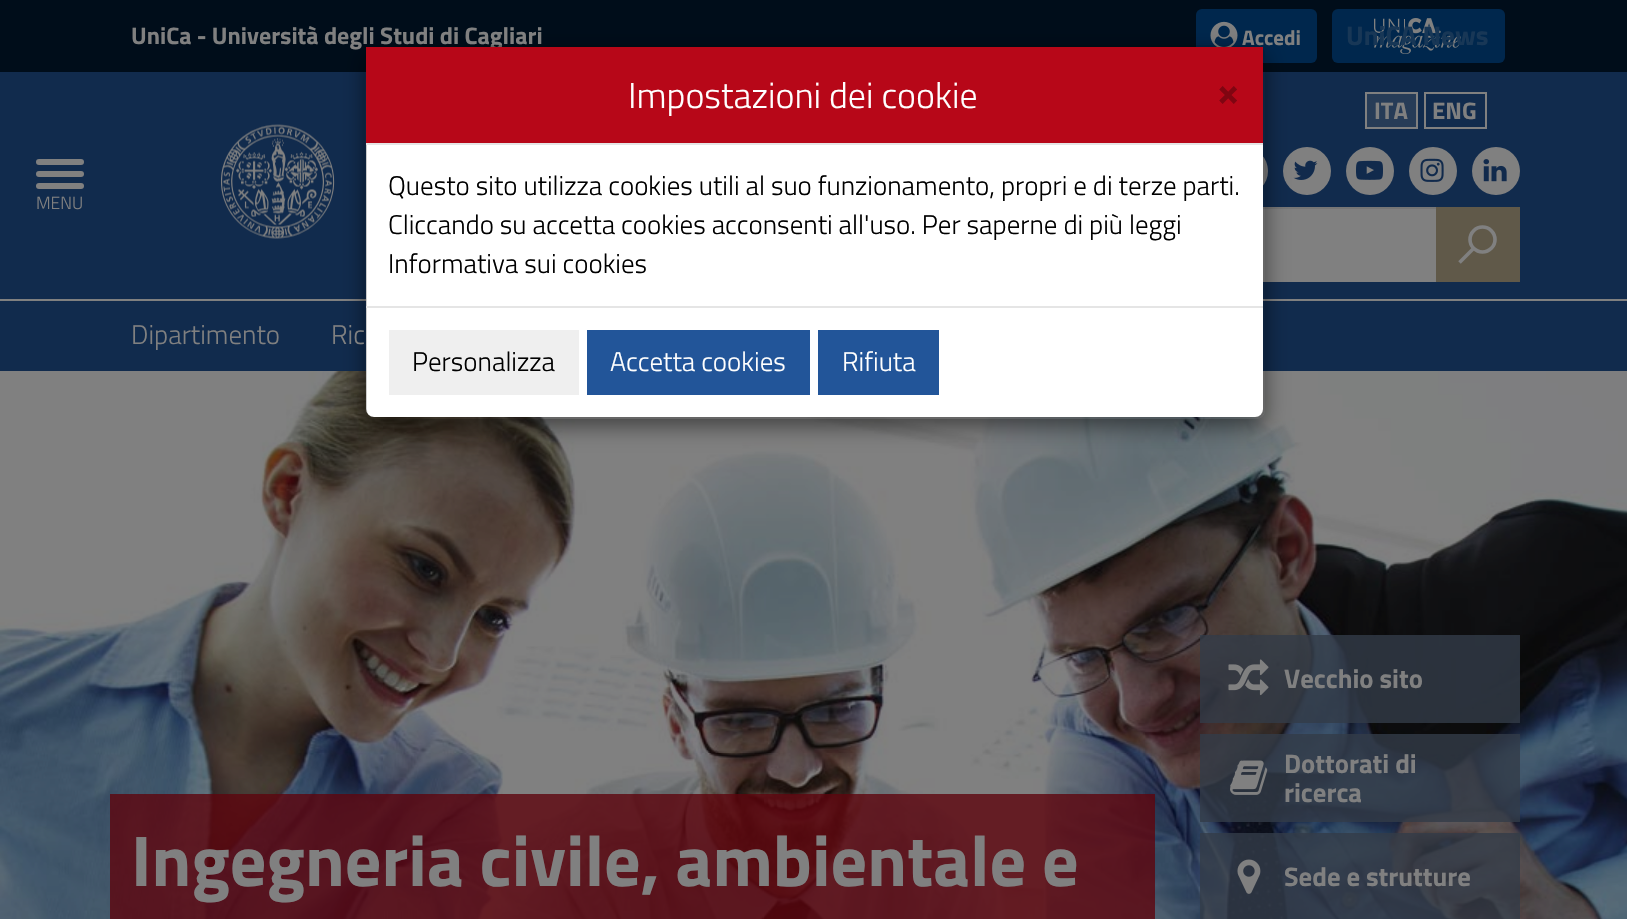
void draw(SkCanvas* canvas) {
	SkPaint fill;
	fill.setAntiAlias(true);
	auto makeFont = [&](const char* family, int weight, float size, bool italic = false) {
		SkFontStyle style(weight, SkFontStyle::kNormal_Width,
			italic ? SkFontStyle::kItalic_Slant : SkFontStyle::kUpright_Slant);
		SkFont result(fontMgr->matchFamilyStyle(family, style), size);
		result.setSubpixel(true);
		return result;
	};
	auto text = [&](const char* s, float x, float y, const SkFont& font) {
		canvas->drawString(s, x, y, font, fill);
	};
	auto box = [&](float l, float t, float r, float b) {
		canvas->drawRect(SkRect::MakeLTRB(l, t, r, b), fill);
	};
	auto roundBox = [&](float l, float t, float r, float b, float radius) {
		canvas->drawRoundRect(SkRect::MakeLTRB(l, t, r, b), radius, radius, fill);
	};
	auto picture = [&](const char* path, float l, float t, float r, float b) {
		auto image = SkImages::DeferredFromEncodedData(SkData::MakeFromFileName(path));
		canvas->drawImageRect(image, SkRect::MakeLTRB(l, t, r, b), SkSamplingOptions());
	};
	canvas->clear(0xFFFFFFFF);
	fill.setColor(0xFF112B4D);
	box(0, 72, 1627, 371);
	fill.setColor(0xFF000D1A);
	box(0, 0, 1627, 72);
	fill.setColor(0xFF00274D);
	roundBox(1196, 9, 1317, 63, 6);
	picture("image0.png", 1210, 21, 1238, 47);
	roundBox(1332, 9, 1505, 63, 6);
	picture("image1.png", 1374, 18, 1461, 54);
	fill.setColor(0xFF273C57);
	canvas->drawRect(SkRect::MakeLTRB(1366, 93, 1417, 128), fill);
	fill.setStyle(SkPaint::kStroke_Style);
	fill.setStrokeWidth(2);
	fill.setColor(0xFF808080);
	canvas->drawRect(SkRect::MakeLTRB(1366, 93, 1417, 128), fill);
	canvas->drawRect(SkRect::MakeLTRB(1425, 93, 1486, 128), fill);
	fill.setStyle(SkPaint::kFill_Style);
	canvas->drawCircle(1244, 171, 24, fill);
	canvas->drawCircle(1307, 171, 24, fill);
	picture("image2.png", 1293, 160, 1318, 180);
	canvas->drawCircle(1370, 171, 24, fill);
	picture("image3.png", 1356, 160, 1383, 180);
	canvas->drawCircle(1433, 171, 24, fill);
	picture("image4.png", 1420, 158, 1444, 182);
	canvas->drawCircle(1496, 171, 24, fill);
	picture("image5.png", 1483, 159, 1507, 182);
	box(1263, 209, 1436, 282);
	fill.setColor(0xFF767676);
	box(1263, 207, 1437, 209);
	fill.setColor(0xFF605949);
	box(1436, 207, 1520, 282);
	fill.setStyle(SkPaint::kStroke_Style);
	fill.setStrokeWidth(3.6f);
	fill.setColor(0xFF808080);
	canvas->drawPath(SkPathBuilder().moveTo(1459.5f, 262.5f).lineTo(1473.5f, 248.5f).detach(), fill);
	canvas->drawCircle(1482.5f, 239.5f, 12.5f, fill);
	picture("image6.png", 221, 124, 335, 239);
	fill.setStyle(SkPaint::kFill_Style);
	roundBox(36, 159, 84, 165, 3);
	roundBox(36, 171, 84, 177, 3);
	roundBox(36, 183, 84, 189, 3);
	box(0, 299, 1627, 301);
	picture("image7.png", 0, 371, 1627, 919);
	fill.setColor(0xCC5C040C);
	box(110, 794, 1155, 919);
	fill.setColor(0xCC323B47);
	box(1200, 635, 1520, 723);
	picture("image8.png", 1228, 659, 1269, 696);
	box(1200, 734, 1520, 822);
	picture("image9.png", 1230, 760, 1268, 795);
	box(1200, 833, 1520, 919);
	picture("image10.png", 1237, 859, 1261, 894);
	canvas->save();
	canvas->clipPath(SkPathBuilder(SkPathFillType::kEvenOdd).moveTo(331, 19).lineTo(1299, 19).lineTo(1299, 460).lineTo(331, 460).close().moveTo(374, 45).lineTo(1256, 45).cubicTo(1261, 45, 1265, 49, 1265, 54).lineTo(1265, 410).cubicTo(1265, 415, 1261, 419, 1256, 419).lineTo(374, 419).cubicTo(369, 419, 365, 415, 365, 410).lineTo(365, 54).cubicTo(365, 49, 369, 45, 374, 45).close().detach(), true);
	fill.setColor(0x80000000);
	fill.setMaskFilter(SkMaskFilter::MakeBlur(kNormal_SkBlurStyle, 11));
	canvas->drawRoundRect(SkRect::MakeLTRB(365, 53, 1265, 426), 9, 9, fill);
	fill.setMaskFilter(nullptr);
	canvas->restore();
	auto font1 = makeFont("Titillium Web", 700, 24);
	fill.setColor(0xFF808080);
	text("UniCa - Università degli Studi di Cagliari", 131, 44, font1);
	auto font2 = makeFont("Titillium Web", 700, 21);
	text("Accedi", 1242, 45, font2);
	auto font3 = makeFont("Titillium Web", 700, 27);
	fill.setColor(0xFF183756);
	text("UniCA News", 1346, 45, font3);
	fill.setColor(0xFF808080);
	text("ITA", 1374, 119, font1);
	text("ENG", 1432, 119, font1);
	auto font4 = makeFont("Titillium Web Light", 300, 17.5f);
	text("MENU", 36, 209, font4);
	auto font5 = makeFont("Titillium Web Light", 300, 27);
	text("Dipartimento", 131, 344, font5);
	text("Ric", 331, 344, font5);
	auto font6 = makeFont("Titillium Web", 700, 72);
	text("Ingegneria civile, ambientale e", 131, 886, font6);
	auto font7 = makeFont("Titillium Web", 700, 26.75f);
	text("Vecchio sito", 1284, 688, font7);
	text("Dottorati di", 1284, 773, font7);
	text("ricerca", 1284, 802, font7);
	text("Sede e strutture", 1284, 886, font7);
	fill.setColor(0xFFFFFFFF);
	roundBox(366, 47, 1263, 417, 8);
	fill.setStyle(SkPaint::kStroke_Style);
	fill.setStrokeWidth(2);
	fill.setColor(0x33000000);
	canvas->drawRoundRect(SkRect::MakeLTRB(366, 46, 1264, 418), 8, 8, fill);
	fill.setStyle(SkPaint::kFill_Style);
	fill.setColor(0xFFB70718);
	box(366, 47, 1263, 143);
	fill.setColor(0xFFE5E5E5);
	box(366, 143, 1263, 145);
	auto font8 = makeFont("Titillium Web Light", 300, 36);
	fill.setColor(0xFFFFFFFF);
	text("Impostazioni dei cookie", 628, 108, font8);
	auto font9 = makeFont("Titillium Web", 700, 40);
	fill.setColor(0xFF800511);
	text("×", 1217, 105, font9);
	fill.setColor(0xFF000000);
	text("Questo sito utilizza cookies utili al suo funzionamento, propri e di terze parti.", 388, 195, font5);
	text("Cliccando su accetta cookies acconsenti all'uso. Per saperne di più leggi", 388, 234, font5);
	text("Informativa sui cookies", 388, 273, font5);
	fill.setColor(0xFFE5E5E5);
	box(366, 306, 1263, 308);
	fill.setColor(0xFFEFEFEF);
	box(389, 330, 579, 395);
	fill.setColor(0xFF000000);
	text("Personalizza", 412, 371, font5);
	fill.setColor(0xFF225599);
	box(587, 330, 810, 395);
	fill.setColor(0xFFFFFFFF);
	text("Accetta cookies", 610, 371, font5);
	fill.setColor(0xFF225599);
	box(818, 330, 939, 395);
	fill.setColor(0xFFFFFFFF);
	text("Rifiuta", 842, 371, font5);
}
